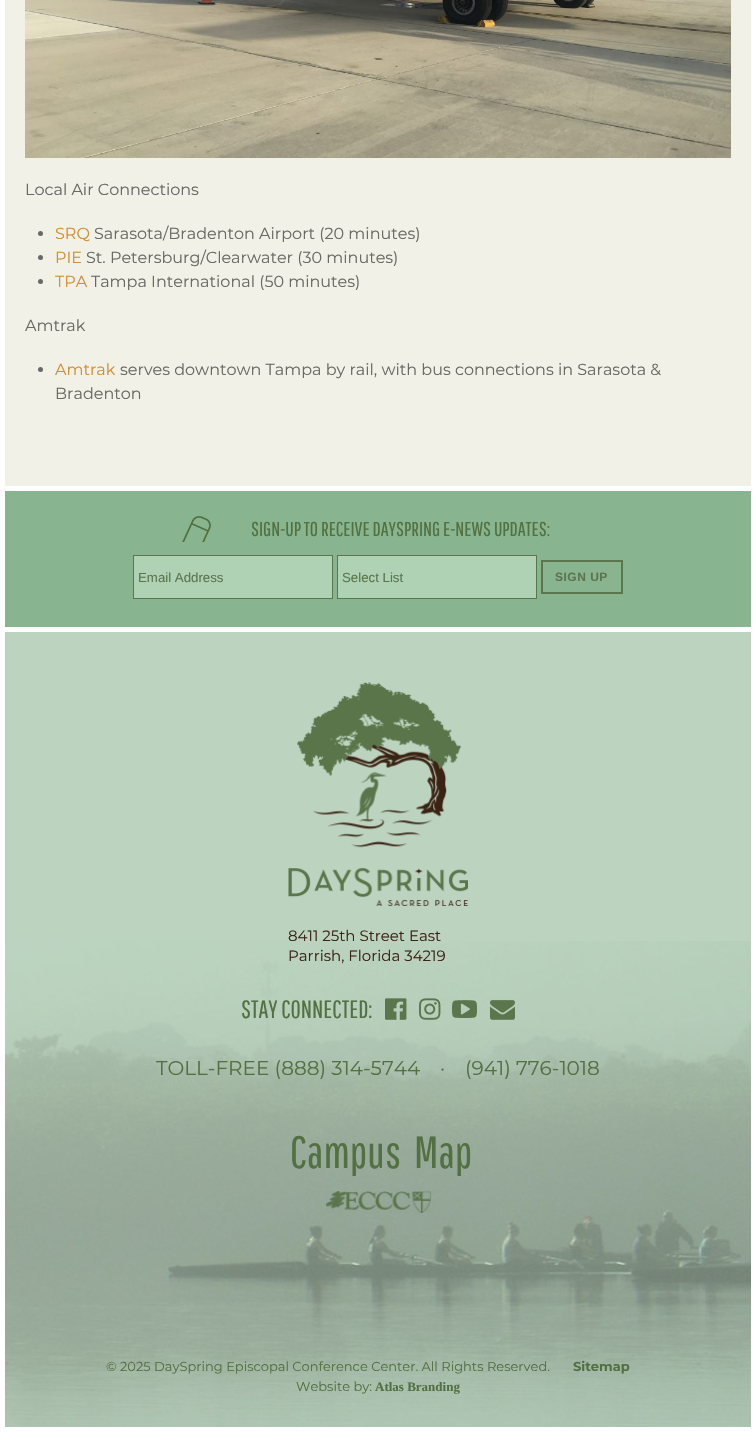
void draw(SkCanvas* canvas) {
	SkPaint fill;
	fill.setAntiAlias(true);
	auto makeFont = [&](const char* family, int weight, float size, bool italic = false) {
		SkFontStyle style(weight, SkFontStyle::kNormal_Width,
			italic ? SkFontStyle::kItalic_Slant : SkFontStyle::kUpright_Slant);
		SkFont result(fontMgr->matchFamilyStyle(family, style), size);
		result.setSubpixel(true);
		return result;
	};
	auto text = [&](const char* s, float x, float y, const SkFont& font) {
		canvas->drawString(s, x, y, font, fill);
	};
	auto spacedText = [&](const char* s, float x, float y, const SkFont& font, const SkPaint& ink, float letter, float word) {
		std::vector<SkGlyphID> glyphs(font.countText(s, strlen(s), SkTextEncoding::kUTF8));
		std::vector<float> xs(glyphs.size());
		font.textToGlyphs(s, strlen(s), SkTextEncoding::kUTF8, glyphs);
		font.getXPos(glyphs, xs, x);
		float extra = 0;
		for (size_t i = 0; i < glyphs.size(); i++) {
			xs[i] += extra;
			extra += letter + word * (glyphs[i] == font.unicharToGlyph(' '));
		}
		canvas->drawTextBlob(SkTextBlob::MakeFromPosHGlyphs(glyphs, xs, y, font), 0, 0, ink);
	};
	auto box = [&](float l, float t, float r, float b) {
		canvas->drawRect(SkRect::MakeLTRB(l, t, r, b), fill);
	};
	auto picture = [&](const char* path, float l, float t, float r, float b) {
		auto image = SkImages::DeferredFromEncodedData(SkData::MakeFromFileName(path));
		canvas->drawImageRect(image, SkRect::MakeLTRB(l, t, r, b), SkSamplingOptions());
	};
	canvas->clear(0xFFFFFFFF);
	fill.setColor(0xFFF2F1E7);
	box(5, 0, 751, 486);
	picture("image0.png", 25, 0, 731, 158);
	fill.setColor(0xFF6A6865);
	canvas->drawCircle(40.5f, 233.5f, 2.5f, fill);
	canvas->drawCircle(40.5f, 257.5f, 2.5f, fill);
	canvas->drawCircle(40.5f, 281.5f, 2.5f, fill);
	canvas->drawCircle(40.5f, 369.5f, 2.5f, fill);
	fill.setColor(0xFF88B48F);
	box(5, 491, 751, 627);
	picture("image1.png", 182, 516, 211, 542);
	fill.setColor(0xFFAFD1B4);
	canvas->drawRect(SkRect::MakeLTRB(133.5f, 555.5f, 332.5f, 598.5f), fill);
	fill.setStyle(SkPaint::kStroke_Style);
	fill.setStrokeWidth(1);
	fill.setColor(0xFF5B754C);
	canvas->drawRect(SkRect::MakeLTRB(133.5f, 555.5f, 332.5f, 598.5f), fill);
	fill.setStyle(SkPaint::kFill_Style);
	fill.setColor(0xFFAFD1B4);
	canvas->drawRect(SkRect::MakeLTRB(337.5f, 555.5f, 536.5f, 598.5f), fill);
	fill.setStyle(SkPaint::kStroke_Style);
	fill.setColor(0xFF5B754C);
	canvas->drawRect(SkRect::MakeLTRB(337.5f, 555.5f, 536.5f, 598.5f), fill);
	fill.setStrokeWidth(2);
	canvas->drawRect(SkRect::MakeLTRB(542, 561, 622, 593), fill);
	fill.setStyle(SkPaint::kFill_Style);
	fill.setColor(0xFFBBD3BF);
	box(5, 632, 751, 941);
	picture("image2.png", 5, 941, 751, 1427);
	picture("image3.png", 288, 682, 468, 906);
	picture("image4.png", 385, 998, 407, 1020);
	picture("image5.png", 419, 998, 441, 1020);
	picture("image6.png", 452, 1000, 477, 1018);
	picture("image7.png", 490, 1000, 515, 1020);
	picture("image8.png", 326, 1191, 431, 1213);
	auto font1 = makeFont("Montserrat", 400, 16);
	fill.setColor(0xFF6A6865);
	text("Local Air Connections", 25, 195, font1);
	fill.setColor(0xFFD28E34);
	text("SRQ", 55, 239, font1);
	fill.setColor(0xFF6A6865);
	text("Sarasota/Bradenton Airport (20 minutes)", 94, 239, font1);
	fill.setColor(0xFFD28E34);
	text("PIE", 55, 263, font1);
	fill.setColor(0xFF6A6865);
	text("St. Petersburg/Clearwater (30 minutes)", 86, 263, font1);
	fill.setColor(0xFFD28E34);
	text("TPA", 55, 287, font1);
	fill.setColor(0xFF6A6865);
	text("Tampa International (50 minutes)", 91, 287, font1);
	text("Amtrak", 25, 331, font1);
	fill.setColor(0xFFD28E34);
	text("Amtrak", 55, 375, font1);
	fill.setColor(0xFF6A6865);
	text("serves downtown Tampa by rail, with bus connections in Sarasota &", 120, 375, font1);
	text("Bradenton", 55, 399, font1);
	auto font2 = makeFont("Pathway Gothic One", 400, 20);
	fill.setColor(0xFF527041);
	text("SIGN-UP TO RECEIVE DAYSPRING E-NEWS UPDATES:", 251, 536, font2);
	auto font3 = makeFont("Liberation Sans", 400, 13.25f);
	fill.setColor(0xFF5B754C);
	text("Email Address", 138, 582, font3);
	text("Select List", 342, 582, font3);
	auto font4 = makeFont("Liberation Sans", 700, 12);
	spacedText("SIGN UP", 555, 581, font4, fill, 0.5f, 0);
	auto font5 = makeFont("Montserrat", 400, 15);
	fill.setColor(0xFF3C2415);
	text("8411 25th Street East", 288, 941, font5);
	text("Parrish, Florida 34219", 288, 961, font5);
	auto font6 = makeFont("Pathway Gothic One", 400, 25);
	fill.setColor(0xFF527041);
	text("STAY CONNECTED:", 241, 1018, font6);
	auto font7 = makeFont("Montserrat", 400, 20);
	text("TOLL-FREE (888) 314-5744", 156, 1075, font7);
	text("·", 440, 1075, font7);
	text("(941) 776-1018", 465, 1075, font7);
	auto font8 = makeFont("Pathway Gothic One", 400, 45);
	text("Campus  Map", 290, 1168, font8);
	auto font9 = makeFont("Montserrat", 400, 13);
	text("© 2025 DaySpring Episcopal Conference Center. All Rights Reserved.", 106, 1371, font9);
	auto font10 = makeFont("Montserrat", 700, 13);
	text("Sitemap", 573, 1371, font10);
	text("Website by:", 296, 1391, font9);
	auto font11 = makeFont("Liberation Serif", 700, 13);
	text("Atlas Branding", 375, 1391, font11);
}
